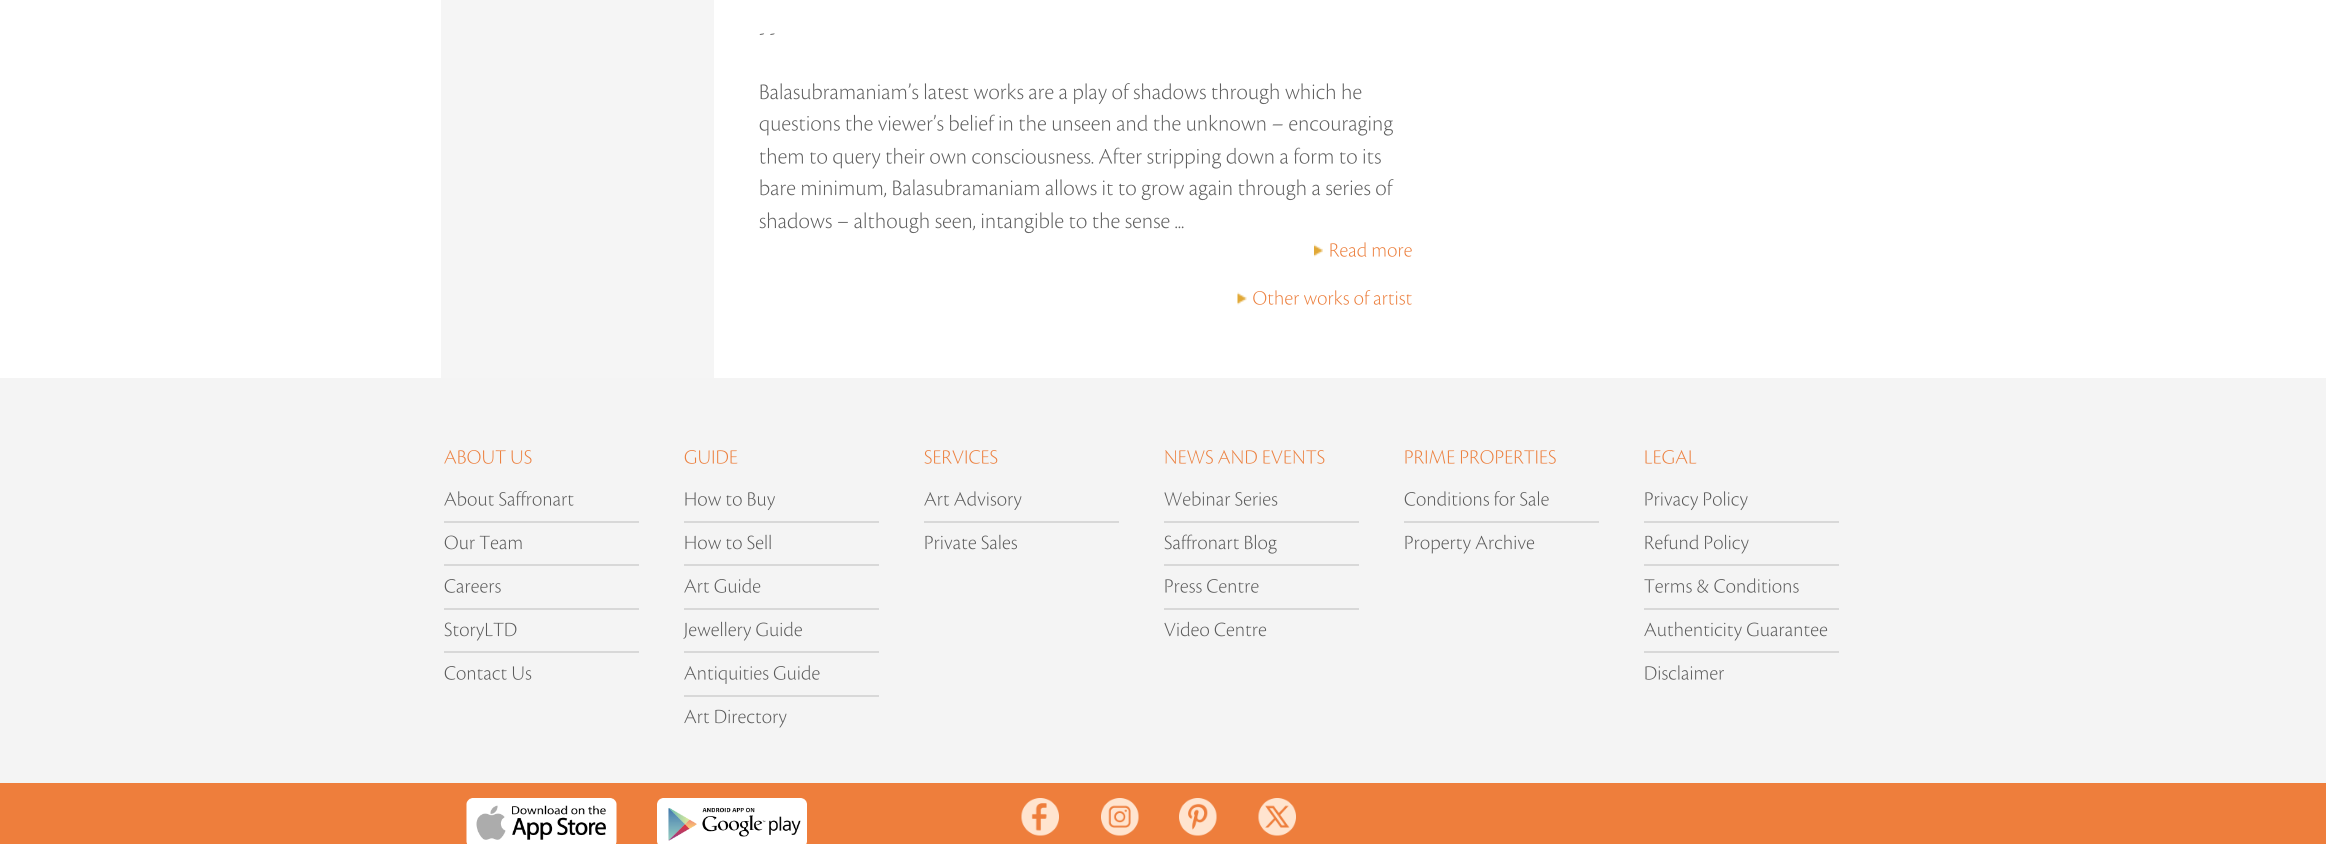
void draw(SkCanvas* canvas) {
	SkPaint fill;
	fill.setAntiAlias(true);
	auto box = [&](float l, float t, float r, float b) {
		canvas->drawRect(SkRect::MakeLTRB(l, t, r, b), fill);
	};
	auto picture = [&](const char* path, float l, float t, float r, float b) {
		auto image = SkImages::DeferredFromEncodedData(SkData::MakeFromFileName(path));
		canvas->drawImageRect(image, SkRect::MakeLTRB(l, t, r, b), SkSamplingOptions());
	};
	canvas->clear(0xFFFFFFFF);
	fill.setColor(0xFFF5F5F5);
	box(441, 0, 714, 378);
	picture("image0.png", 759, 33, 765, 35);
	picture("image1.png", 770, 33, 775, 35);
	picture("image2.png", 760, 83, 1362, 105);
	picture("image3.png", 759, 114, 1393, 136);
	picture("image4.png", 760, 147, 1381, 169);
	picture("image5.png", 760, 179, 1394, 201);
	picture("image6.png", 759, 212, 1184, 234);
	picture("image7.png", 1314, 244, 1323, 257);
	picture("image8.png", 1330, 242, 1412, 257);
	picture("image9.png", 1237, 292, 1247, 305);
	picture("image10.png", 1253, 290, 1412, 305);
	fill.setColor(0xFFF4F4F4);
	box(0, 378, 2326, 783);
	picture("image11.png", 444, 450, 532, 464);
	fill.setColor(0xFFD8D8D8);
	box(444, 521, 639, 523);
	picture("image12.png", 444, 491, 574, 506);
	box(444, 564, 639, 566);
	picture("image13.png", 444, 535, 522, 550);
	box(444, 608, 639, 610);
	picture("image14.png", 444, 579, 501, 593);
	box(444, 651, 639, 653);
	picture("image15.png", 444, 622, 517, 641);
	picture("image16.png", 444, 666, 532, 680);
	picture("image17.png", 684, 450, 738, 464);
	box(684, 521, 879, 523);
	picture("image18.png", 685, 492, 775, 511);
	box(684, 564, 879, 566);
	picture("image19.png", 685, 534, 771, 550);
	box(684, 608, 879, 610);
	picture("image20.png", 684, 578, 761, 593);
	box(684, 651, 879, 653);
	picture("image21.png", 683, 621, 802, 641);
	box(684, 695, 879, 697);
	picture("image22.png", 684, 665, 820, 684);
	picture("image23.png", 684, 709, 787, 728);
	picture("image24.png", 924, 450, 998, 464);
	box(924, 521, 1119, 523);
	picture("image25.png", 924, 491, 1022, 510);
	picture("image26.png", 925, 534, 1017, 550);
	picture("image27.png", 1165, 450, 1325, 464);
	box(1164, 521, 1359, 523);
	picture("image28.png", 1164, 491, 1278, 506);
	box(1164, 564, 1359, 566);
	picture("image29.png", 1164, 534, 1277, 554);
	box(1164, 608, 1359, 610);
	picture("image30.png", 1165, 579, 1259, 593);
	picture("image31.png", 1164, 621, 1267, 637);
	picture("image32.png", 1405, 450, 1556, 464);
	box(1404, 521, 1599, 523);
	picture("image33.png", 1404, 491, 1549, 506);
	picture("image34.png", 1405, 534, 1535, 554);
	picture("image35.png", 1645, 450, 1697, 464);
	box(1644, 521, 1839, 523);
	picture("image36.png", 1645, 491, 1748, 511);
	box(1644, 564, 1839, 566);
	picture("image37.png", 1645, 534, 1749, 554);
	box(1644, 608, 1839, 610);
	picture("image38.png", 1644, 578, 1799, 593);
	box(1644, 651, 1839, 653);
	picture("image39.png", 1644, 621, 1828, 641);
	picture("image40.png", 1645, 665, 1724, 680);
	fill.setColor(0xFFEE7E3C);
	box(0, 783, 2326, 844);
	picture("image41.png", 466, 798, 617, 844);
	picture("image42.png", 657, 798, 807, 844);
	picture("image43.png", 1021, 798, 1059, 836);
	picture("image44.png", 1101, 798, 1139, 836);
	picture("image45.png", 1179, 798, 1217, 836);
	picture("image46.png", 1258, 798, 1296, 836);
}
